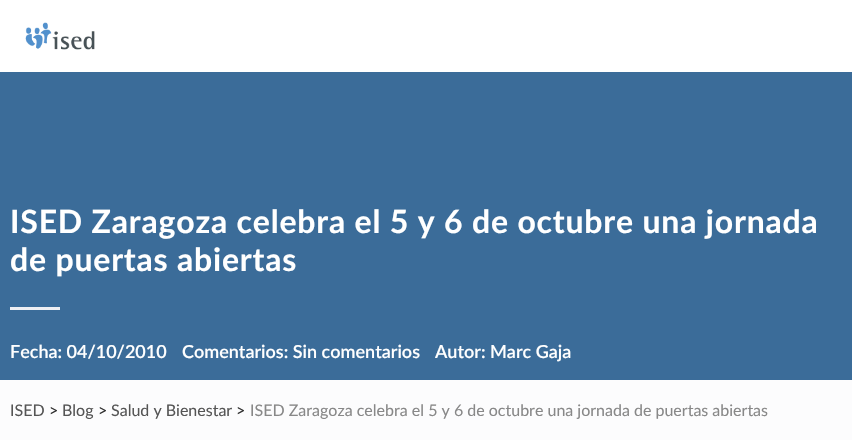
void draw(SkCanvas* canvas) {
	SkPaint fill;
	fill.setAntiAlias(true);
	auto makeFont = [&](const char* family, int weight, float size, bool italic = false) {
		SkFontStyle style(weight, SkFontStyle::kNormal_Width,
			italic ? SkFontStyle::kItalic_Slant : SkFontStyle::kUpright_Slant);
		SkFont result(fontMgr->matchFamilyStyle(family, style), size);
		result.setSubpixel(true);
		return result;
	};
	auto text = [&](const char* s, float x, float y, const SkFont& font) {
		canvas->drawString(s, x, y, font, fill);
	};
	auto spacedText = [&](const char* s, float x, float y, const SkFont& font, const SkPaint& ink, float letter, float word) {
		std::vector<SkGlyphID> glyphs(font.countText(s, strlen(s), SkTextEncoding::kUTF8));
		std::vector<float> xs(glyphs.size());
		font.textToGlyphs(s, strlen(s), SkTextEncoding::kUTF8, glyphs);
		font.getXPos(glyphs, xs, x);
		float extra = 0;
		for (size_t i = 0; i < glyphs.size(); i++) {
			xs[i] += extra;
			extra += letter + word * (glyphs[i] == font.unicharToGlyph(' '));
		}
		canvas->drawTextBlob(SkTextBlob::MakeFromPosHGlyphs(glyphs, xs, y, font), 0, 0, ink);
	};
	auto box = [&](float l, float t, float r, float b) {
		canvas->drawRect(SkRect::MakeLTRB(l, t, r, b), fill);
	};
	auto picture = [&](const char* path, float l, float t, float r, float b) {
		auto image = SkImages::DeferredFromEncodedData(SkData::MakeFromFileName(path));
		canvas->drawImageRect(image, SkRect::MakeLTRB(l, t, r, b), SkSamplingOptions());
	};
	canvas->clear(0xFFFFFFFF);
	picture("image0.png", 25, 22, 95, 50);
	fill.setColor(0xFF3B6C99);
	box(0, 72, 852, 380);
	fill.setColor(0xFFEDEEF2);
	box(10, 307, 60, 310);
	fill.setColor(0xFFFCFCFD);
	box(0, 380, 852, 440);
	auto font1 = makeFont("Lato", 700, 32);
	fill.setColor(0xFFFFFFFF);
	spacedText("ISED Zaragoza celebra el 5 y 6 de octubre una jornada", 10, 233, font1, fill, 0.8f, 0);
	spacedText("de puertas abiertas", 10, 271, font1, fill, 0.8f, 0);
	auto font2 = makeFont("Lato", 600, 18);
	text("Fecha: 04/10/2010", 10, 358, font2);
	text("Comentarios: Sin comentarios", 182, 358, font2);
	text("Autor: Marc Gaja", 435, 358, font2);
	auto font3 = makeFont("Lato", 400, 16);
	fill.setColor(0xFF555555);
	text("ISED", 10, 416, font3);
	fill.setColor(0xFF333333);
	text(">", 49, 416, font3);
	fill.setColor(0xFF555555);
	text("Blog", 62, 416, font3);
	fill.setColor(0xFF333333);
	text(">", 98, 416, font3);
	fill.setColor(0xFF555555);
	text("Salud y Bienestar", 111, 416, font3);
	fill.setColor(0xFF333333);
	text(">", 236, 416, font3);
	fill.setColor(0xFF888888);
	text("ISED Zaragoza celebra el 5 y 6 de octubre una jornada de puertas abiertas", 250, 416, font3);
}
